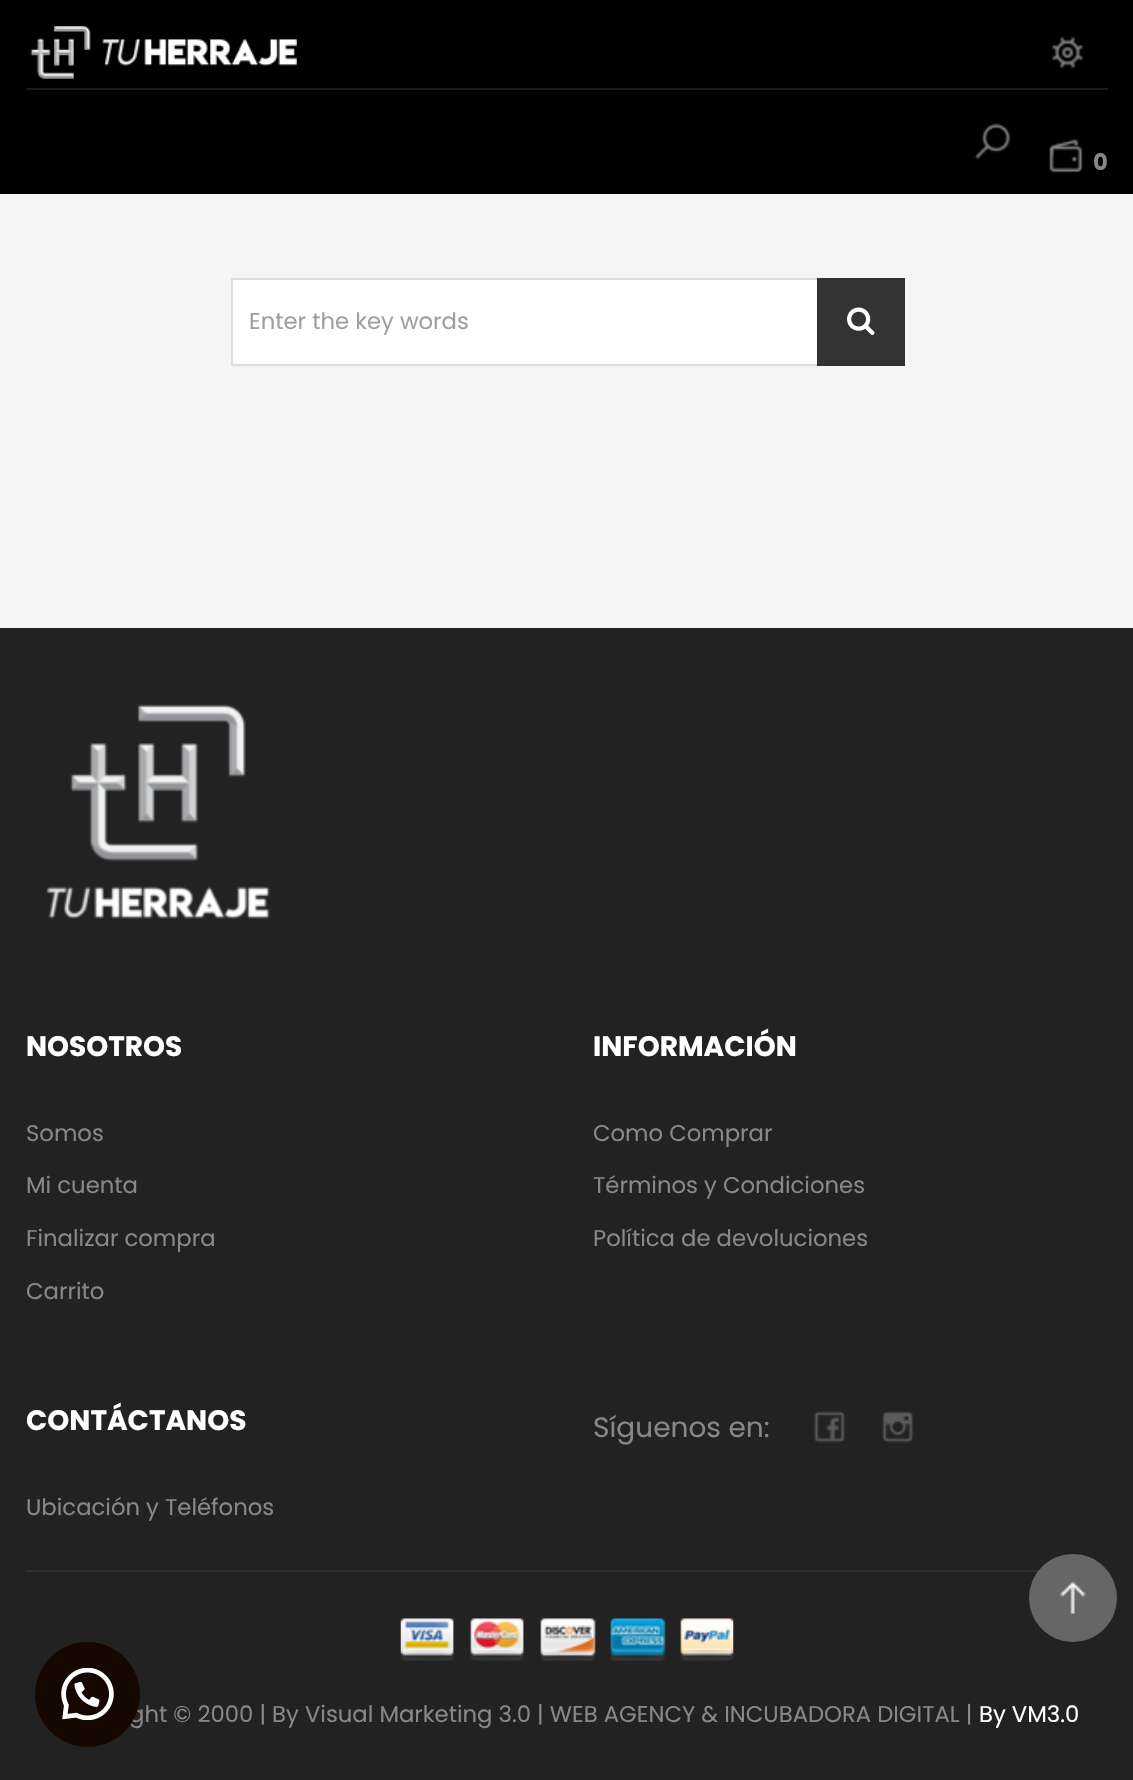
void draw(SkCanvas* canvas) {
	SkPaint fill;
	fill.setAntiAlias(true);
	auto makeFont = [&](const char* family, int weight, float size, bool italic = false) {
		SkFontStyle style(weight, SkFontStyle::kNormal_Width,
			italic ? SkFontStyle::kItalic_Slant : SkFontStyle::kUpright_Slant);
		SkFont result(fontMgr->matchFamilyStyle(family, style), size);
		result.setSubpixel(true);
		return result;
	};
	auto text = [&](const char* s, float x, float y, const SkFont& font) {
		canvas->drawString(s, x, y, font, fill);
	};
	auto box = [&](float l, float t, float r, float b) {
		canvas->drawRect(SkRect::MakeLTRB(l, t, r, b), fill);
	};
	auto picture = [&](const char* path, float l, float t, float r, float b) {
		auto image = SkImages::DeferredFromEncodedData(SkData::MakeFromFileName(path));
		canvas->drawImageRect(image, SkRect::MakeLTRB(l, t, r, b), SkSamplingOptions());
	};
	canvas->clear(0xFFF5F5F5);
	fill.setColor(0xFF000000);
	box(0, 0, 1133, 194);
	fill.setColor(0xFF1A1A1A);
	box(26, 88, 1108, 90);
	picture("image0.png", 30, 26, 297, 79);
	picture("image1.png", 974, 123, 1011, 160);
	picture("image2.png", 1051, 36, 1084, 69);
	picture("image3.png", 1049, 139, 1083, 173);
	fill.setColor(0xFFFFFFFF);
	box(233, 280, 817, 364);
	fill.setStyle(SkPaint::kStroke_Style);
	fill.setStrokeWidth(2);
	fill.setColor(0xFFDDDDDD);
	canvas->drawRect(SkRect::MakeLTRB(232, 279, 904, 365), fill);
	fill.setStyle(SkPaint::kFill_Style);
	fill.setColor(0xFF333333);
	box(817, 278, 905, 366);
	picture("image4.png", 847, 307, 875, 335);
	fill.setColor(0xFF222222);
	box(0, 628, 1133, 1780);
	picture("image5.png", 46, 704, 270, 919);
	picture("image6.png", 813, 1411, 846, 1443);
	picture("image7.png", 882, 1411, 914, 1443);
	fill.setColor(0xFF2E2E2E);
	box(26, 1570, 1108, 1572);
	picture("image8.png", 400, 1618, 734, 1661);
	fill.setColor(0xFF666666);
	canvas->drawCircle(1073, 1598, 44, fill);
	picture("image9.png", 1060, 1581, 1086, 1614);
	auto font1 = makeFont("Poppins", 700, 22.75f);
	fill.setColor(0xFF888888);
	text("0", 1093, 170, font1);
	auto font2 = makeFont("Poppins", 400, 22.75f);
	fill.setColor(0xFF9F9F9F);
	text("Enter the key words", 249, 329, font2);
	auto font3 = makeFont("Poppins", 700, 28);
	fill.setColor(0xFFFFFFFF);
	text("NOSOTROS", 26, 1056, font3);
	fill.setColor(0xFF888888);
	text("Somos", 26, 1141, font2);
	text("Mi cuenta", 26, 1193, font2);
	text("Finalizar compra", 26, 1246, font2);
	text("Carrito", 26, 1299, font2);
	fill.setColor(0xFFFFFFFF);
	text("INFORMACIÓN", 593, 1056, font3);
	fill.setColor(0xFF888888);
	text("Como Comprar", 593, 1141, font2);
	text("Términos y Condiciones", 593, 1193, font2);
	text("Política de devoluciones", 593, 1246, font2);
	fill.setColor(0xFFFFFFFF);
	text("CONTÁCTANOS", 26, 1430, font3);
	fill.setColor(0xFF888888);
	text("Ubicación y Teléfonos", 26, 1515, font2);
	auto font4 = makeFont("Poppins", 400, 28);
	text("Síguenos en:", 593, 1437, font4);
	text("ght © 2000 | By Visual Marketing 3.0 | WEB AGENCY & INCUBADORA DIGITAL |", 129, 1722, font2);
	fill.setColor(0xFFFFFFFF);
	text("By VM3.0", 979, 1722, font2);
	fill.setColor(0xFF160700);
	canvas->drawCircle(87.5f, 1694.5f, 52.5f, fill);
	picture("image10.png", 61, 1668, 114, 1720);
}
